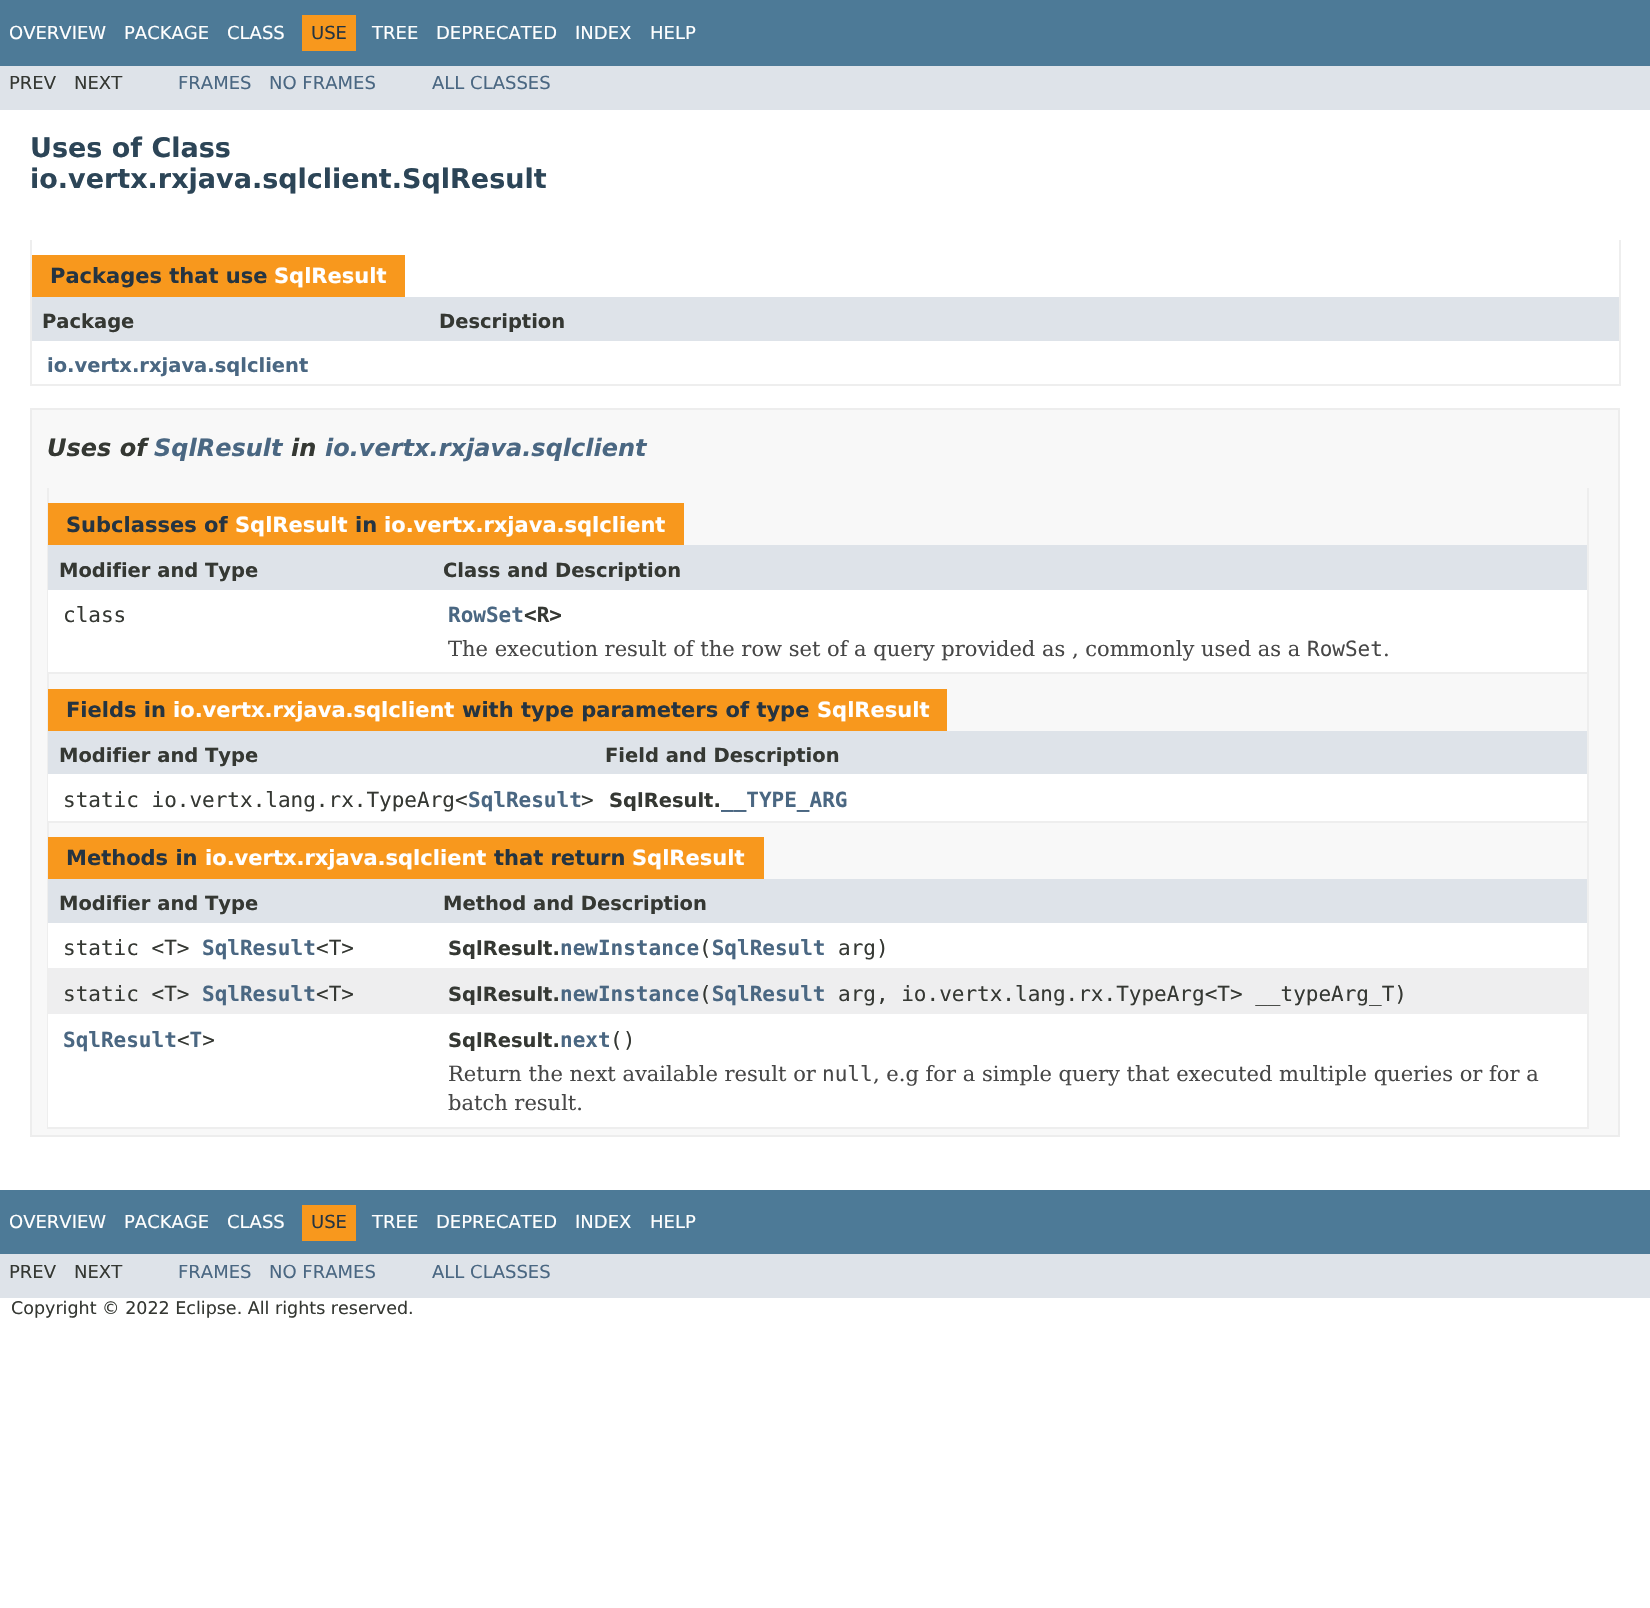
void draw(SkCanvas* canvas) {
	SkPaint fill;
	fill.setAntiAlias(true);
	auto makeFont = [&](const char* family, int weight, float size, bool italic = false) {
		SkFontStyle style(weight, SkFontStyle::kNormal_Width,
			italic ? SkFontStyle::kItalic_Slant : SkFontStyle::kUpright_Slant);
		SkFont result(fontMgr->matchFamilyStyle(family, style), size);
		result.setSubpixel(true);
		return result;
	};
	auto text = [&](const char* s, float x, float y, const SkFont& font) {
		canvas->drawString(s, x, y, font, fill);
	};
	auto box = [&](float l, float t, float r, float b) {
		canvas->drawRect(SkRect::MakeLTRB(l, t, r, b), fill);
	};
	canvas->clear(0xFFFFFFFF);
	fill.setColor(0xFF4D7A97);
	box(0, 0, 1650, 66);
	fill.setColor(0xFFF8981D);
	box(302, 15, 356, 51);
	fill.setColor(0xFFDEE3E9);
	box(0, 66, 1650, 110);
	fill.setColor(0xFFEEEEEE);
	box(1619, 240, 1621, 386);
	box(30, 384, 1620, 386);
	box(30, 240, 32, 386);
	fill.setColor(0xFFF8981D);
	box(32, 255, 405, 297);
	fill.setColor(0xFFDEE3E9);
	box(32, 297, 1619, 341);
	fill.setColor(0xFFF8F8F8);
	canvas->drawRect(SkRect::MakeLTRB(31, 409, 1619, 1136), fill);
	fill.setStyle(SkPaint::kStroke_Style);
	fill.setStrokeWidth(2);
	fill.setColor(0xFFEDEDED);
	canvas->drawRect(SkRect::MakeLTRB(31, 409, 1619, 1136), fill);
	fill.setStyle(SkPaint::kFill_Style);
	fill.setColor(0xFFEEEEEE);
	box(1587, 488, 1589, 822);
	box(47, 672, 1589, 674);
	box(47, 488, 49, 674);
	fill.setColor(0xFFF8981D);
	box(48, 503, 684, 545);
	fill.setColor(0xFFDEE3E9);
	box(48, 545, 1587, 590);
	fill.setColor(0xFFFFFFFF);
	box(48, 590, 1587, 672);
	fill.setColor(0xFFEEEEEE);
	box(47, 821, 1589, 823);
	box(47, 674, 49, 822);
	fill.setColor(0xFFF8981D);
	box(48, 689, 947, 731);
	fill.setColor(0xFFDEE3E9);
	box(48, 731, 1587, 774);
	fill.setColor(0xFFFFFFFF);
	box(48, 774, 1587, 821);
	fill.setColor(0xFFEEEEEE);
	box(1587, 822, 1589, 1128);
	box(47, 1127, 1589, 1129);
	box(47, 822, 49, 1128);
	fill.setColor(0xFFF8981D);
	box(48, 837, 764, 879);
	fill.setColor(0xFFDEE3E9);
	box(48, 879, 1587, 923);
	fill.setColor(0xFFFFFFFF);
	box(48, 923, 1587, 968);
	fill.setColor(0xFFEEEEEF);
	box(49, 968, 1587, 1014);
	fill.setColor(0xFFFFFFFF);
	box(48, 1014, 1587, 1127);
	fill.setColor(0xFF4D7A97);
	box(0, 1190, 1650, 1254);
	fill.setColor(0xFFF8981D);
	box(302, 1205, 356, 1241);
	fill.setColor(0xFFDEE3E9);
	box(0, 1254, 1650, 1298);
	auto font1 = makeFont("DejaVu Sans", 400, 18);
	fill.setColor(0xFFFFFFFF);
	text("OVERVIEW", 9, 39, font1);
	text("PACKAGE", 124, 39, font1);
	text("CLASS", 227, 39, font1);
	fill.setColor(0xFF253441);
	text("USE", 311, 39, font1);
	fill.setColor(0xFFFFFFFF);
	text("TREE", 372, 39, font1);
	text("DEPRECATED", 436, 39, font1);
	text("INDEX", 575, 39, font1);
	text("HELP", 650, 39, font1);
	fill.setColor(0xFF353833);
	text("PREV", 9, 89, font1);
	text("NEXT", 74, 89, font1);
	fill.setColor(0xFF4A6782);
	text("FRAMES", 178, 89, font1);
	text("NO FRAMES", 269, 89, font1);
	text("ALL CLASSES", 432, 89, font1);
	auto font2 = makeFont("DejaVu Sans", 700, 27);
	fill.setColor(0xFF2C4557);
	text("Uses of Class", 30, 157, font2);
	text("io.vertx.rxjava.sqlclient.SqlResult", 30, 188, font2);
	auto font3 = makeFont("DejaVu Sans", 700, 21);
	fill.setColor(0xFF253441);
	text("Packages that use", 50, 283, font3);
	fill.setColor(0xFFFFFFFF);
	text("SqlResult", 274, 283, font3);
	auto font4 = makeFont("DejaVu Sans", 700, 19.5f);
	fill.setColor(0xFF353833);
	text("Package", 42, 328, font4);
	text("Description", 439, 328, font4);
	fill.setColor(0xFF4A6782);
	text("io.vertx.rxjava.sqlclient", 47, 372, font4);
	auto font5 = makeFont("DejaVu Sans", 700, 24, true);
	fill.setColor(0xFF353833);
	text("Uses of", 47, 456, font5);
	fill.setColor(0xFF4A6782);
	text("SqlResult", 154, 456, font5);
	fill.setColor(0xFF353833);
	text("in", 291, 456, font5);
	fill.setColor(0xFF4A6782);
	text("io.vertx.rxjava.sqlclient", 325, 456, font5);
	fill.setColor(0xFF253441);
	text("Subclasses of", 66, 532, font3);
	fill.setColor(0xFFFFFFFF);
	text("SqlResult", 235, 532, font3);
	fill.setColor(0xFF253441);
	text("in", 355, 532, font3);
	fill.setColor(0xFFFFFFFF);
	text("io.vertx.rxjava.sqlclient", 384, 532, font3);
	fill.setColor(0xFF353833);
	text("Modifier and Type", 59, 577, font4);
	text("Class and Description", 443, 577, font4);
	auto font6 = makeFont("DejaVu Sans Mono", 400, 21);
	text("class", 63, 622, font6);
	auto font7 = makeFont("DejaVu Sans Mono", 700, 21);
	fill.setColor(0xFF4A6782);
	text("RowSet", 448, 622, font7);
	fill.setColor(0xFF353833);
	text("<R>", 524, 622, font7);
	auto font8 = makeFont("DejaVu Serif", 400, 21);
	fill.setColor(0xFF474747);
	text("The execution result of the row set of a query provided as , commonly used as a", 448, 656, font8);
	text("RowSet", 1307, 656, font6);
	text(".", 1383, 656, font8);
	fill.setColor(0xFF253441);
	text("Fields in", 66, 717, font3);
	fill.setColor(0xFFFFFFFF);
	text("io.vertx.rxjava.sqlclient", 173, 717, font3);
	fill.setColor(0xFF253441);
	text("with type parameters of type", 462, 717, font3);
	fill.setColor(0xFFFFFFFF);
	text("SqlResult", 817, 717, font3);
	fill.setColor(0xFF353833);
	text("Modifier and Type", 59, 762, font4);
	text("Field and Description", 605, 762, font4);
	text("static io.vertx.lang.rx.TypeArg<", 63, 807, font6);
	fill.setColor(0xFF4A6782);
	text("SqlResult", 468, 807, font7);
	fill.setColor(0xFF353833);
	text(">", 581, 807, font6);
	text("SqlResult.", 609, 807, font4);
	fill.setColor(0xFF4A6782);
	text("__TYPE_ARG", 721, 807, font7);
	fill.setColor(0xFF253441);
	text("Methods in", 66, 865, font3);
	fill.setColor(0xFFFFFFFF);
	text("io.vertx.rxjava.sqlclient", 205, 865, font3);
	fill.setColor(0xFF253441);
	text("that return", 494, 865, font3);
	fill.setColor(0xFFFFFFFF);
	text("SqlResult", 632, 865, font3);
	fill.setColor(0xFF353833);
	text("Modifier and Type", 59, 910, font4);
	text("Method and Description", 443, 910, font4);
	text("static <T>", 63, 955, font6);
	fill.setColor(0xFF4A6782);
	text("SqlResult", 202, 955, font7);
	fill.setColor(0xFF353833);
	text("<T>", 316, 955, font6);
	fill.setColor(0xFF4A6782);
	text("newInstance SqlResult", 560, 955, font7);
	fill.setColor(0xFF353833);
	text("SqlResult.", 448, 955, font4);
	text("(", 699, 955, font6);
	text("arg)", 838, 955, font6);
	text("static <T>", 63, 1001, font6);
	fill.setColor(0xFF4A6782);
	text("SqlResult", 202, 1001, font7);
	fill.setColor(0xFF353833);
	text("<T>", 316, 1001, font6);
	fill.setColor(0xFF4A6782);
	text("newInstance SqlResult", 560, 1001, font7);
	fill.setColor(0xFF353833);
	text("arg, io.vertx.lang.rx.TypeArg<T> __typeArg_T)", 838, 1001, font6);
	text("SqlResult.", 448, 1001, font4);
	text("(", 699, 1001, font6);
	fill.setColor(0xFF4A6782);
	text("SqlResult T", 63, 1047, font7);
	fill.setColor(0xFF353833);
	text("< >", 177, 1047, font6);
	text("SqlResult.", 448, 1047, font4);
	fill.setColor(0xFF4A6782);
	text("next", 560, 1047, font7);
	fill.setColor(0xFF353833);
	text("()", 610, 1047, font6);
	fill.setColor(0xFF474747);
	text("Return the next available result or", 448, 1081, font8);
	text("null", 822, 1081, font6);
	text(", e.g for a simple query that executed multiple queries or for a", 873, 1081, font8);
	text("batch result.", 448, 1110, font8);
	fill.setColor(0xFFFFFFFF);
	text("OVERVIEW", 9, 1228, font1);
	text("PACKAGE", 124, 1228, font1);
	text("CLASS", 227, 1228, font1);
	fill.setColor(0xFF253441);
	text("USE", 311, 1228, font1);
	fill.setColor(0xFFFFFFFF);
	text("TREE", 372, 1228, font1);
	text("DEPRECATED", 436, 1228, font1);
	text("INDEX", 575, 1228, font1);
	text("HELP", 650, 1228, font1);
	fill.setColor(0xFF353833);
	text("PREV", 9, 1278, font1);
	text("NEXT", 74, 1278, font1);
	fill.setColor(0xFF4A6782);
	text("FRAMES", 178, 1278, font1);
	text("NO FRAMES", 269, 1278, font1);
	text("ALL CLASSES", 432, 1278, font1);
	auto font9 = makeFont("DejaVu Sans", 400, 17.5f);
	fill.setColor(0xFF353833);
	text("Copyright © 2022 Eclipse. All rights reserved.", 11, 1314, font9);
}
